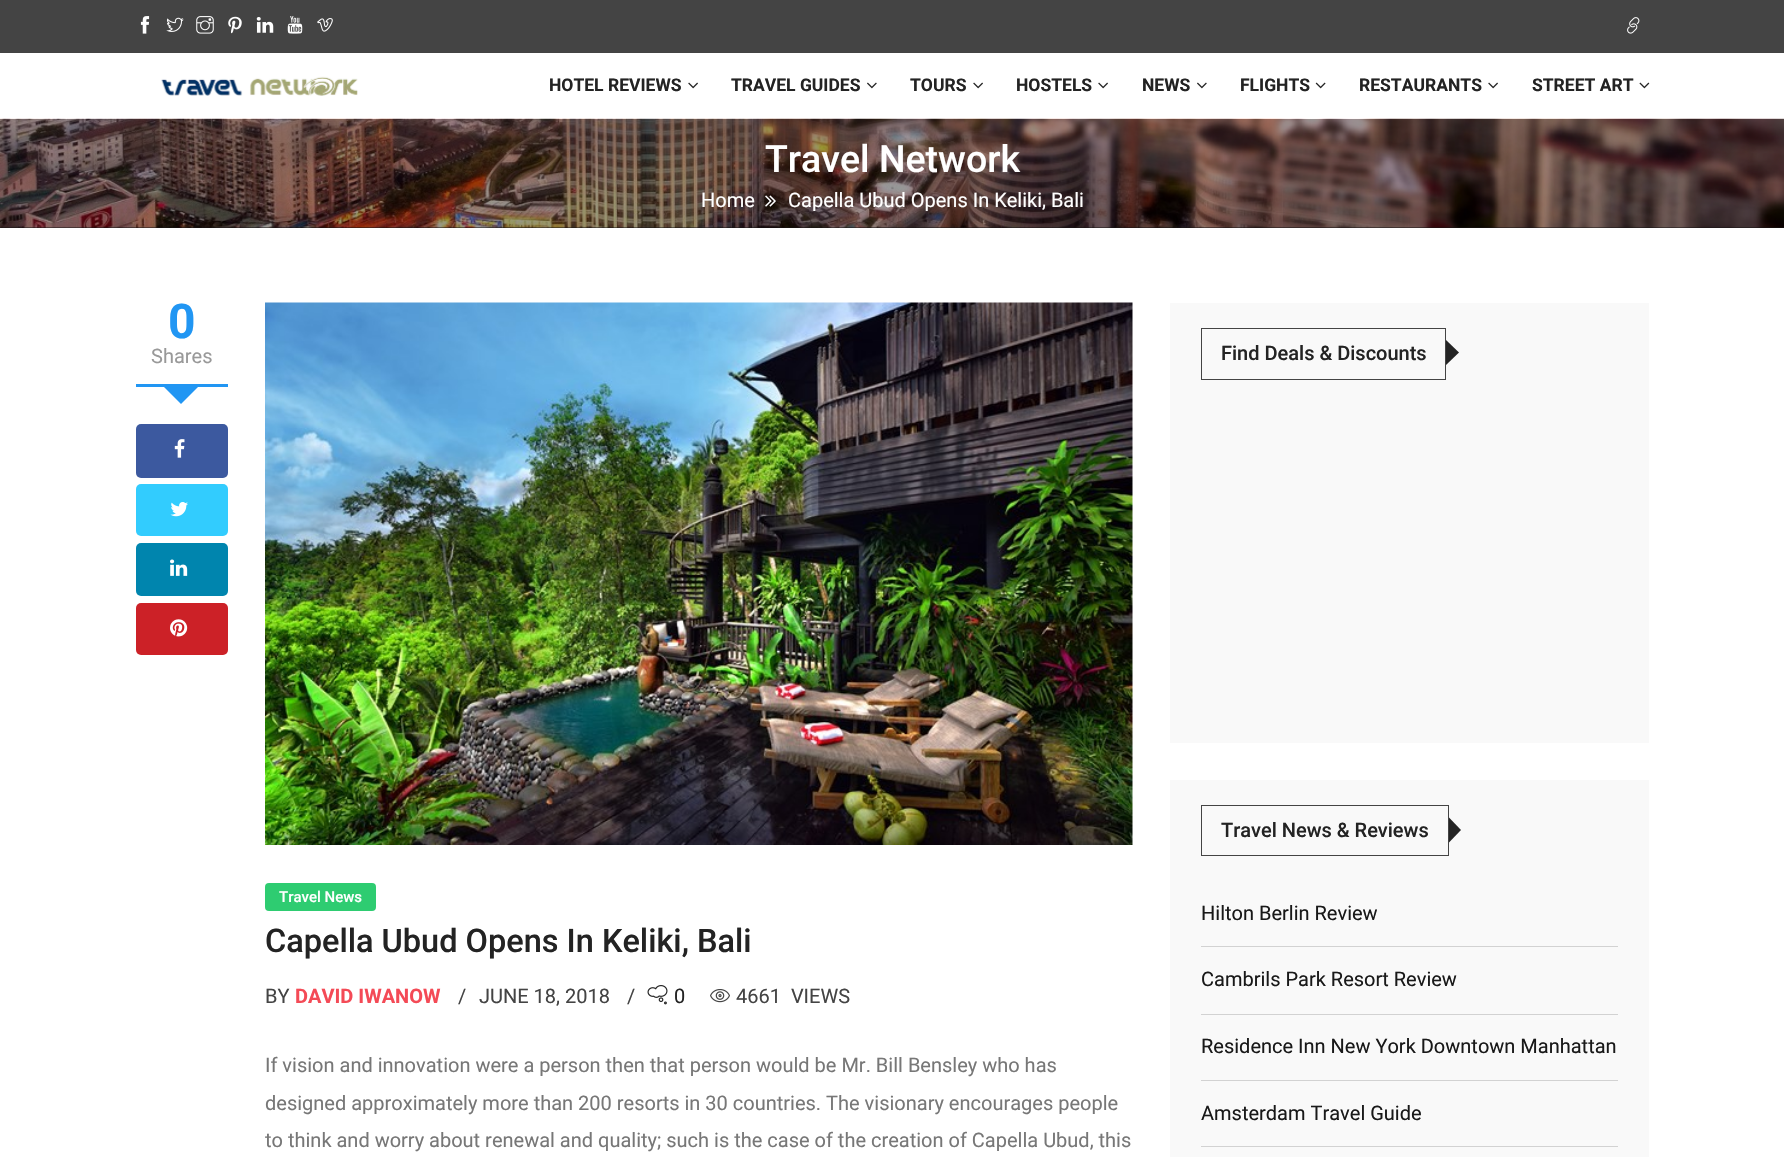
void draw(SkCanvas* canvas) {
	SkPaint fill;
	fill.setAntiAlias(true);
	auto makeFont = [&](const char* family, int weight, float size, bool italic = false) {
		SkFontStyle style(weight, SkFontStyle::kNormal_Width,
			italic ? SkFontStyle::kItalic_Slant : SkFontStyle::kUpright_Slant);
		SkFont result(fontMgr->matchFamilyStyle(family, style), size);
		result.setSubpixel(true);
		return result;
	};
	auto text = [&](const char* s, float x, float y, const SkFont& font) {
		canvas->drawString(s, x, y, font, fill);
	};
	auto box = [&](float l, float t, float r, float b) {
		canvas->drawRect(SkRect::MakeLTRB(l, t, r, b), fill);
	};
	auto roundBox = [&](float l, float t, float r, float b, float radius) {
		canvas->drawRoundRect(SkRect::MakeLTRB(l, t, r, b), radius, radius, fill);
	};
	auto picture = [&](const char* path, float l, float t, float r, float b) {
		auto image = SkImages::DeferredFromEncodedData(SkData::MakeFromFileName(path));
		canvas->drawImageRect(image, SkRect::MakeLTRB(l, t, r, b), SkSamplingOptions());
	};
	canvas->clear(0xFFFFFFFF);
	fill.setColor(0xFF444444);
	box(0, 0, 1784, 53);
	picture("image0.png", 140, 16, 150, 34);
	picture("image1.png", 166, 17, 184, 32);
	picture("image2.png", 196, 16, 214, 34);
	picture("image3.png", 228, 16, 242, 34);
	picture("image4.png", 256, 17, 274, 33);
	picture("image5.png", 287, 16, 303, 34);
	picture("image6.png", 317, 18, 333, 32);
	picture("image7.png", 1627, 17, 1640, 34);
	canvas->save();
	canvas->clipPath(SkPathBuilder(SkPathFillType::kEvenOdd).moveTo(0, 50).lineTo(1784, 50).lineTo(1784, 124).lineTo(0, 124).close().moveTo(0, 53).lineTo(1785, 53).lineTo(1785, 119).lineTo(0, 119).close().detach(), true);
	fill.setColor(0x1A000000);
	fill.setMaskFilter(SkMaskFilter::MakeBlur(kNormal_SkBlurStyle, 1));
	canvas->drawRect(SkRect::MakeLTRB(1, 54, 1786, 120), fill);
	fill.setMaskFilter(nullptr);
	canvas->restore();
	fill.setColor(0xFFFFFFFF);
	box(118, 118, 1668, 119);
	picture("image8.png", 161, 76, 358, 96);
	picture("image9.png", 688, 82, 698, 89);
	picture("image10.png", 867, 82, 877, 89);
	picture("image9.png", 973, 82, 983, 89);
	picture("image9.png", 1098, 82, 1108, 89);
	picture("image10.png", 1197, 82, 1207, 89);
	picture("image11.png", 1315, 82, 1326, 89);
	picture("image9.png", 1488, 82, 1498, 89);
	picture("image12.png", 1639, 82, 1650, 89);
	fill.setColor(0xFF24201F);
	box(0, 227, 1784, 228);
	picture("image13.png", 0, 118, 1784, 228);
	fill.setColor(0x66000000);
	box(0, 119, 1784, 228);
	picture("image14.png", 765, 195, 776, 207);
	fill.setColor(0xFF2196F3);
	box(136, 384, 228, 387);
	canvas->drawPath(SkPathBuilder().moveTo(161, 384).lineTo(201, 384).lineTo(181, 404).close().detach(), fill);
	fill.setColor(0xFF3C599F);
	roundBox(136, 424, 228, 478, 5);
	picture("image15.png", 174, 439, 185, 458);
	fill.setColor(0xFF32CCFE);
	roundBox(136, 484, 228, 536, 5);
	picture("image16.png", 170, 502, 188, 517);
	fill.setColor(0xFF0085AE);
	roundBox(136, 543, 228, 596, 5);
	picture("image17.png", 170, 559, 188, 576);
	fill.setColor(0xFFCC2127);
	roundBox(136, 603, 228, 655, 5);
	picture("image18.png", 170, 619, 188, 637);
	picture("image19.png", 265, 302, 1133, 845);
	fill.setColor(0xFF2ECC71);
	roundBox(265, 883, 376, 911, 4);
	picture("image20.png", 647, 985, 668, 1005);
	picture("image21.png", 710, 989, 730, 1003);
	fill.setColor(0xFFF9F9F9);
	box(1170, 303, 1649, 743);
	fill.setStyle(SkPaint::kStroke_Style);
	fill.setStrokeWidth(1);
	fill.setColor(0xFF444444);
	canvas->drawRect(SkRect::MakeLTRB(1201.5f, 328.5f, 1445.5f, 379.5f), fill);
	fill.setStyle(SkPaint::kFill_Style);
	fill.setColor(0xFF242424);
	canvas->drawPath(SkPathBuilder().moveTo(1446, 365).lineTo(1446, 340).lineTo(1459, 352.5f).close().detach(), fill);
	fill.setColor(0xFFF9F9F9);
	box(1170, 780, 1649, 1157);
	fill.setStyle(SkPaint::kStroke_Style);
	fill.setColor(0xFF444444);
	canvas->drawRect(SkRect::MakeLTRB(1201.5f, 805.5f, 1448.5f, 855.5f), fill);
	fill.setStyle(SkPaint::kFill_Style);
	fill.setColor(0xFF242424);
	canvas->drawPath(SkPathBuilder().moveTo(1449, 842.5f).lineTo(1449, 817.5f).lineTo(1461, 830).close().detach(), fill);
	fill.setColor(0xFFD2D2D2);
	box(1201, 946, 1618, 947);
	box(1201, 1014, 1618, 1015);
	box(1201, 1080, 1618, 1081);
	box(1201, 1146, 1618, 1147);
	auto font1 = makeFont("Roboto", 700, 17.5f);
	fill.setColor(0xFF232323);
	text("HOTEL REVIEWS", 549, 91, font1);
	text("TRAVEL GUIDES", 731, 91, font1);
	text("TOURS", 910, 91, font1);
	text("HOSTELS", 1016, 91, font1);
	text("NEWS", 1142, 91, font1);
	text("FLIGHTS", 1240, 91, font1);
	text("RESTAURANTS", 1359, 91, font1);
	text("STREET ART", 1532, 91, font1);
	auto font2 = makeFont("Roboto", 500, 37.5f);
	fill.setColor(0xFFFFFFFF);
	text("Travel Network", 765, 172, font2);
	auto font3 = makeFont("Roboto", 400, 20);
	text("Home", 701, 207, font3);
	text("Capella Ubud Opens In Keliki, Bali", 788, 207, font3);
	auto font4 = makeFont("Roboto", 700, 48);
	fill.setColor(0xFF2196F3);
	text("0", 168, 338, font4);
	fill.setColor(0xFF999999);
	text("Shares", 151, 363, font3);
	auto font5 = makeFont("Roboto", 500, 15);
	fill.setColor(0xFFFFFFFF);
	text("Travel News", 279, 902, font5);
	auto font6 = makeFont("Roboto", 500, 32.5f);
	fill.setColor(0xFF232323);
	text("Capella Ubud Opens In Keliki, Bali", 265, 952, font6);
	fill.setColor(0xFF444444);
	text("BY", 265, 1003, font3);
	auto font7 = makeFont("Roboto", 700, 20);
	fill.setColor(0xFFF44A56);
	text("DAVID IWANOW", 295, 1003, font7);
	fill.setColor(0xFF444444);
	text("/", 458, 1003, font3);
	text("JUNE 18, 2018", 479, 1003, font3);
	text("/", 627, 1003, font3);
	fill.setColor(0xFF232323);
	text("0", 674, 1003, font3);
	fill.setColor(0xFF444444);
	text("4661  VIEWS", 736, 1003, font3);
	fill.setColor(0xFF777777);
	text("If vision and innovation were a person then that person would be Mr. Bill Bensley who has", 265, 1072, font3);
	text("designed approximately more than 200 resorts in 30 countries. The visionary encourages people", 265, 1110, font3);
	text("to think and worry about renewal and quality; such is the case of the creation of Capella Ubud, this", 265, 1147, font3);
	auto font8 = makeFont("Roboto", 500, 20);
	fill.setColor(0xFF232323);
	text("Find Deals & Discounts", 1221, 360, font8);
	text("Travel News & Reviews", 1221, 837, font8);
	fill.setColor(0xFF191919);
	text("Hilton Berlin Review", 1201, 920, font3);
	text("Cambrils Park Resort Review", 1201, 986, font3);
	text("Residence Inn New York Downtown Manhattan", 1201, 1053, font3);
	text("Amsterdam Travel Guide", 1201, 1120, font3);
}
